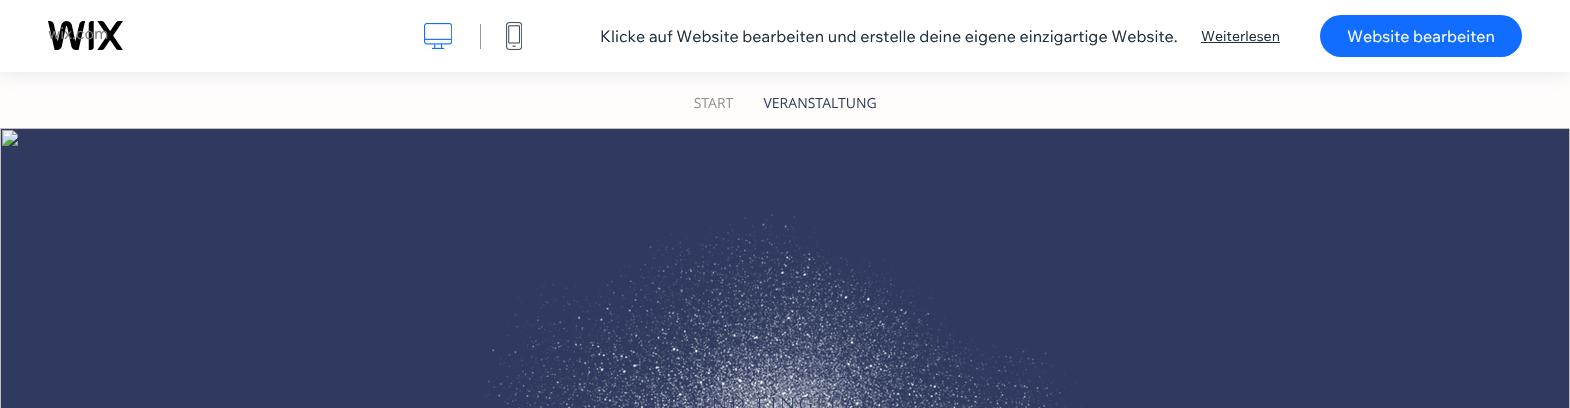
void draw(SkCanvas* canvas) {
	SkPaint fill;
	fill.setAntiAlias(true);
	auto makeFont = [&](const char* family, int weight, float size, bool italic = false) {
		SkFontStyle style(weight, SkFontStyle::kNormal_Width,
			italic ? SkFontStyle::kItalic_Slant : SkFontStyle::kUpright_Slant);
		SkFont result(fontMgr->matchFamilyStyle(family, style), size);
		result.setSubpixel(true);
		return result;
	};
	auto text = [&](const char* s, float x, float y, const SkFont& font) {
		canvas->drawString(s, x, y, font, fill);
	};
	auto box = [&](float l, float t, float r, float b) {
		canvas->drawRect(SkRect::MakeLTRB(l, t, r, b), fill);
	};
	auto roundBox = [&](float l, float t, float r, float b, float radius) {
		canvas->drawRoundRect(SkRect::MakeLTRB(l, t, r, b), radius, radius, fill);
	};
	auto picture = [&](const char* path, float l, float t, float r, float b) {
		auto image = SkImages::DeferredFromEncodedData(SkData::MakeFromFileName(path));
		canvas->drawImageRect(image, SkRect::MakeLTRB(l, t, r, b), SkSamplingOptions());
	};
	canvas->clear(0xFFFFFFFF);
	picture("image3.png", 0, 72, 1570, 408);
	fill.setColor(0x3381A2B6);
	fill.setMaskFilter(SkMaskFilter::MakeBlur(kNormal_SkBlurStyle, 9));
	canvas->drawRect(SkRect::MakeLTRB(0, 2, 1570, 74), fill);
	fill.setMaskFilter(nullptr);
	fill.setColor(0xFFFFFFFF);
	box(0, 0, 1570, 72);
	picture("image0.png", 48, 21, 123, 50);
	picture("image1.png", 424, 23, 452, 49);
	fill.setColor(0xFF90989E);
	box(480, 24, 481, 49);
	picture("image2.png", 506, 22, 522, 50);
	fill.setColor(0xFF20303C);
	box(1201, 42, 1280, 43);
	fill.setColor(0xFF116DFF);
	roundBox(1320, 15, 1522, 57, 21);
	auto font1 = makeFont("Wix Madefor Text", 400, 16);
	fill.setColor(0xFF808080);
	text("wix.com", 48, 39, font1);
	fill.setColor(0xFF20303C);
	text("Klicke auf Website bearbeiten und erstelle deine eigene einzigartige Website.", 600, 42, font1);
	auto font2 = makeFont("Wix Madefor Text", 400, 14);
	text("Weiterlesen", 1201, 41, font2);
	fill.setColor(0xFFFFFFFF);
	text("Website bearbeiten", 1347, 42, font1);
}
